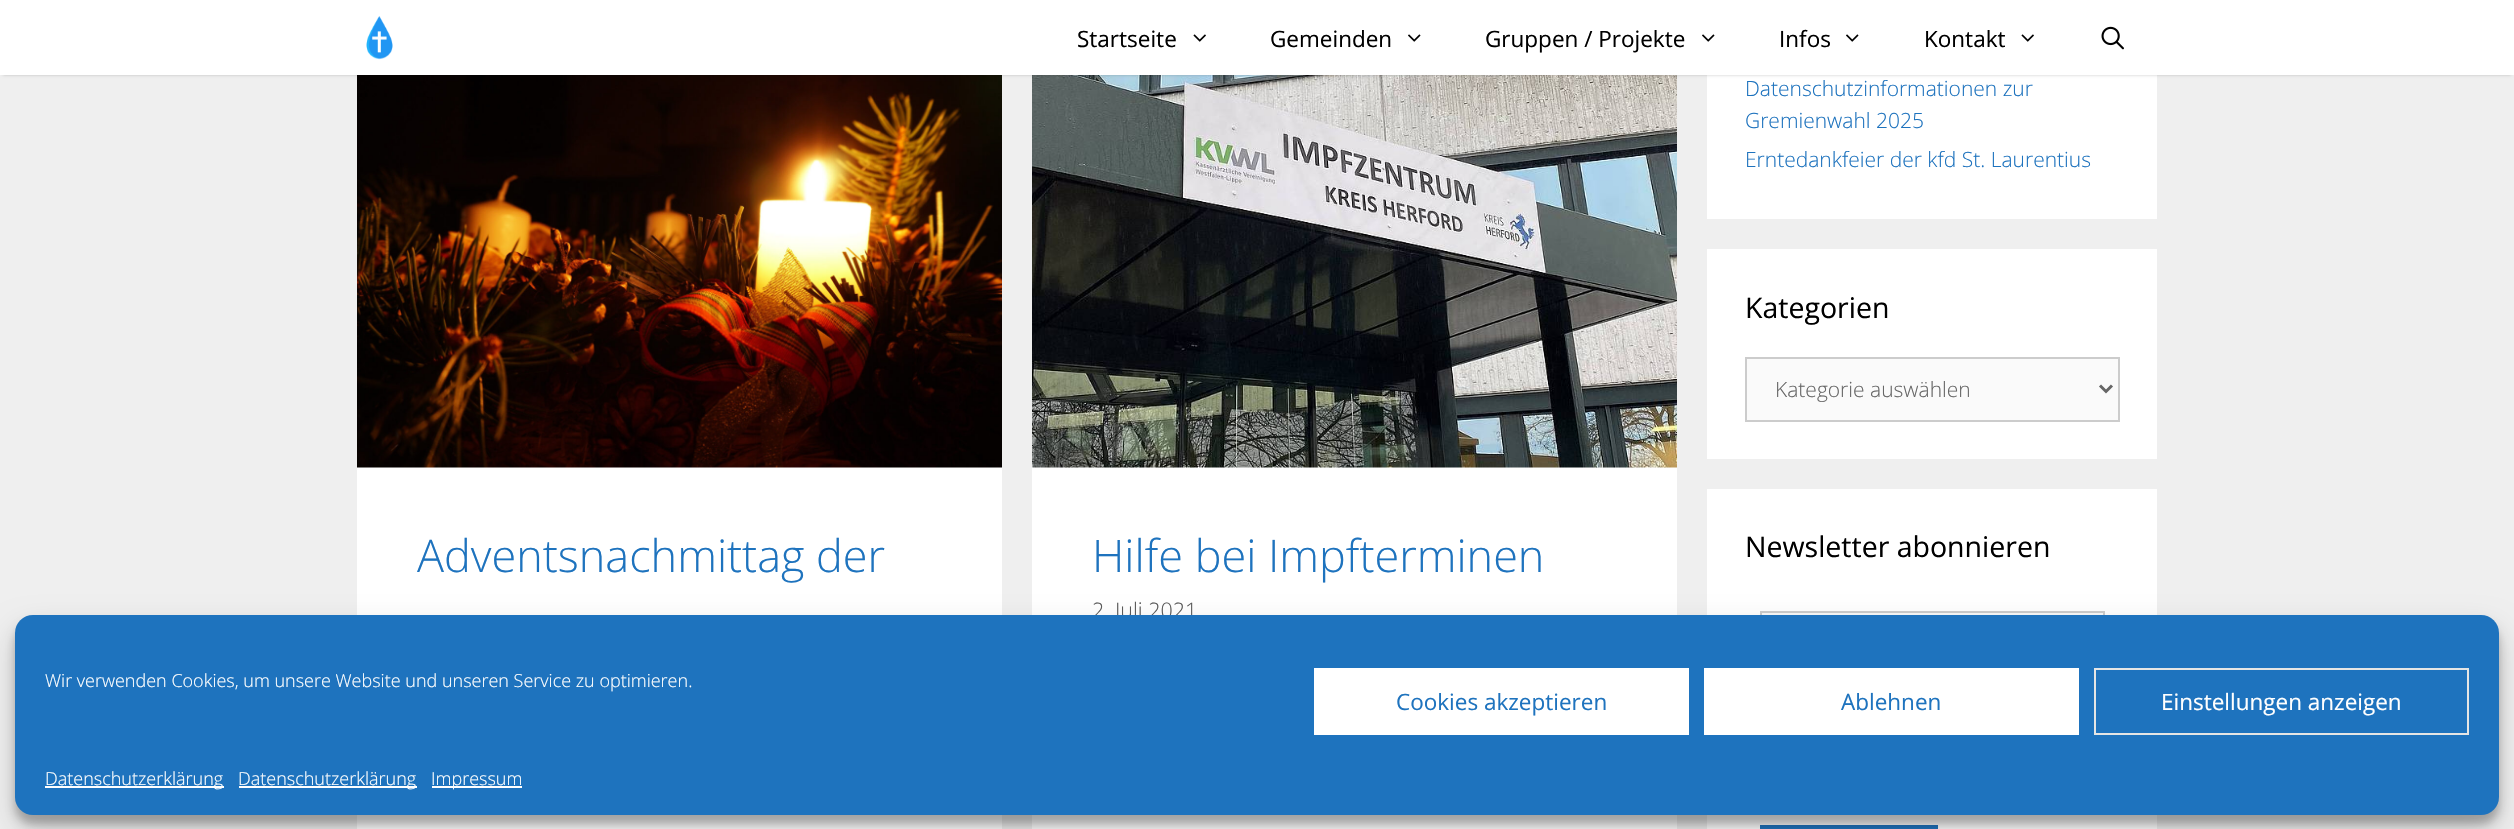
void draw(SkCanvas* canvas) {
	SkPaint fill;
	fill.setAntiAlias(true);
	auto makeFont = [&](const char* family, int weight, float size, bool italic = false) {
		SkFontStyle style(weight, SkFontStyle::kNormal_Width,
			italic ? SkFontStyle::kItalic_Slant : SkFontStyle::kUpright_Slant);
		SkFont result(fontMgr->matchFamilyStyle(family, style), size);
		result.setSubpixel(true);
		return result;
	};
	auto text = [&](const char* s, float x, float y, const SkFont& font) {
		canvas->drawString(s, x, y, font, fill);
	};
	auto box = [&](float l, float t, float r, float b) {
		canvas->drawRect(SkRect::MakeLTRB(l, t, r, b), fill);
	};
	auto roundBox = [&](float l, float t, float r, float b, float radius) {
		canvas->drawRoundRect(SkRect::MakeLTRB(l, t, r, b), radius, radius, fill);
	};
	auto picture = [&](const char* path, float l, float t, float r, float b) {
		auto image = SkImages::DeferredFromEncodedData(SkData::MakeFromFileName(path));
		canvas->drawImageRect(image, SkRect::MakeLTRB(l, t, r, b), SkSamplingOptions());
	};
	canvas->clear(0xFFEFEFEF);
	fill.setColor(0xFFFFFFFF);
	box(1707, 75, 2157, 219);
	box(357, 467, 1002, 829);
	picture("image4.png", 357, 75, 1002, 468);
	box(1032, 467, 1677, 829);
	picture("image5.png", 1032, 75, 1677, 468);
	fill.setColor(0x33000000);
	fill.setMaskFilter(SkMaskFilter::MakeBlur(kNormal_SkBlurStyle, 1.5f));
	canvas->drawRect(SkRect::MakeLTRB(3, 6, 2511, 75), fill);
	fill.setMaskFilter(nullptr);
	fill.setColor(0xFFFFFFFF);
	box(0, 0, 2514, 75);
	picture("image0.png", 366, 16, 393, 60);
	picture("image1.png", 1193, 34, 1206, 42);
	picture("image2.png", 1408, 34, 1421, 42);
	picture("image2.png", 1702, 34, 1715, 42);
	picture("image2.png", 1846, 34, 1859, 42);
	picture("image1.png", 2021, 34, 2034, 42);
	picture("image3.png", 2101, 26, 2124, 50);
	box(1707, 249, 2157, 459);
	fill.setColor(0xFFFAFAFA);
	canvas->drawRect(SkRect::MakeLTRB(1746, 358, 2119, 421), fill);
	fill.setStyle(SkPaint::kStroke_Style);
	fill.setStrokeWidth(2);
	fill.setColor(0xFFCCCCCC);
	canvas->drawRect(SkRect::MakeLTRB(1746, 358, 2119, 421), fill);
	fill.setStrokeWidth(3);
	fill.setColor(0xFF666666);
	canvas->drawPath(SkPathBuilder().moveTo(2100, 385.5f).lineTo(2106, 391.5f).lineTo(2112, 385.5f).detach(), fill);
	fill.setStyle(SkPaint::kFill_Style);
	fill.setColor(0xFFFFFFFF);
	box(1707, 489, 2157, 829);
	fill.setColor(0xFFFAFAFA);
	box(1762, 613, 2103, 615);
	fill.setStyle(SkPaint::kStroke_Style);
	fill.setStrokeWidth(2);
	fill.setColor(0xFFCCCCCC);
	canvas->drawRect(SkRect::MakeLTRB(1761, 612, 2104, 674), fill);
	fill.setStyle(SkPaint::kFill_Style);
	fill.setColor(0xFF1E73BE);
	box(1760, 825, 1938, 829);
	fill.setColor(0x3B000000);
	fill.setMaskFilter(SkMaskFilter::MakeBlur(kNormal_SkBlurStyle, 4.5f));
	canvas->drawRoundRect(SkRect::MakeLTRB(15, 624, 2499, 824), 18, 18, fill);
	fill.setMaskFilter(nullptr);
	fill.setColor(0x30000000);
	fill.setMaskFilter(SkMaskFilter::MakeBlur(kNormal_SkBlurStyle, 15));
	canvas->drawRoundRect(SkRect::MakeLTRB(15, 630, 2499, 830), 18, 18, fill);
	fill.setMaskFilter(nullptr);
	auto font1 = makeFont("Open Sans", 400, 22.5f);
	fill.setColor(0xFF000000);
	text("Startseite", 1077, 47, font1);
	text("Gemeinden", 1270, 47, font1);
	text("Gruppen / Projekte", 1485, 47, font1);
	text("Infos", 1779, 47, font1);
	text("Kontakt", 1924, 47, font1);
	auto font2 = makeFont("Open Sans", 300, 21);
	fill.setColor(0xFF1E73BE);
	text("Datenschutzinformationen zur", 1745, 96, font2);
	text("Gremienwahl 2025", 1745, 128, font2);
	text("Erntedankfeier der kfd St. Laurentius", 1745, 167, font2);
	auto font3 = makeFont("Open Sans", 400, 28.5f);
	fill.setColor(0xFF000000);
	text("Kategorien", 1745, 318, font3);
	fill.setColor(0xFF666666);
	text("Kategorie auswählen", 1775, 397, font2);
	fill.setColor(0xFF000000);
	text("Newsletter abonnieren", 1745, 557, font3);
	auto font4 = makeFont("Open Sans", 300, 45);
	fill.setColor(0xFF1E73BE);
	text("Adventsnachmittag der", 417, 572, font4);
	text("Hilfe bei Impfterminen", 1092, 572, font4);
	auto font5 = makeFont("Open Sans", 300, 21.5f);
	fill.setColor(0xFF595959);
	text("2. Juli 2021", 1092, 618, font5);
	fill.setColor(0xFF1E73BE);
	roundBox(15, 615, 2499, 815, 18);
	auto font6 = makeFont("Open Sans", 300, 18);
	fill.setColor(0xFFFFFFFF);
	text("Wir verwenden Cookies, um unsere Website und unseren Service zu optimieren.", 45, 687, font6);
	box(1314, 668, 1689, 735);
	fill.setColor(0xFF1E73BE);
	text("Cookies akzeptieren", 1396, 710, font1);
	fill.setColor(0xFFFFFFFF);
	box(1704, 668, 2079, 735);
	fill.setColor(0xFF1E73BE);
	text("Ablehnen", 1841, 710, font1);
	fill.setStyle(SkPaint::kStroke_Style);
	fill.setColor(0xFFE5E5E5);
	canvas->drawRect(SkRect::MakeLTRB(2095, 669, 2468, 734), fill);
	fill.setStyle(SkPaint::kFill_Style);
	fill.setColor(0xFFFFFFFF);
	text("Einstellungen anzeigen", 2161, 710, font1);
	box(45, 786, 224, 788);
	text("Datenschutzerklärung", 45, 785, font6);
	box(239, 786, 417, 788);
	text("Datenschutzerklärung", 238, 785, font6);
	box(432, 786, 522, 788);
	text("Impressum", 431, 785, font6);
}
